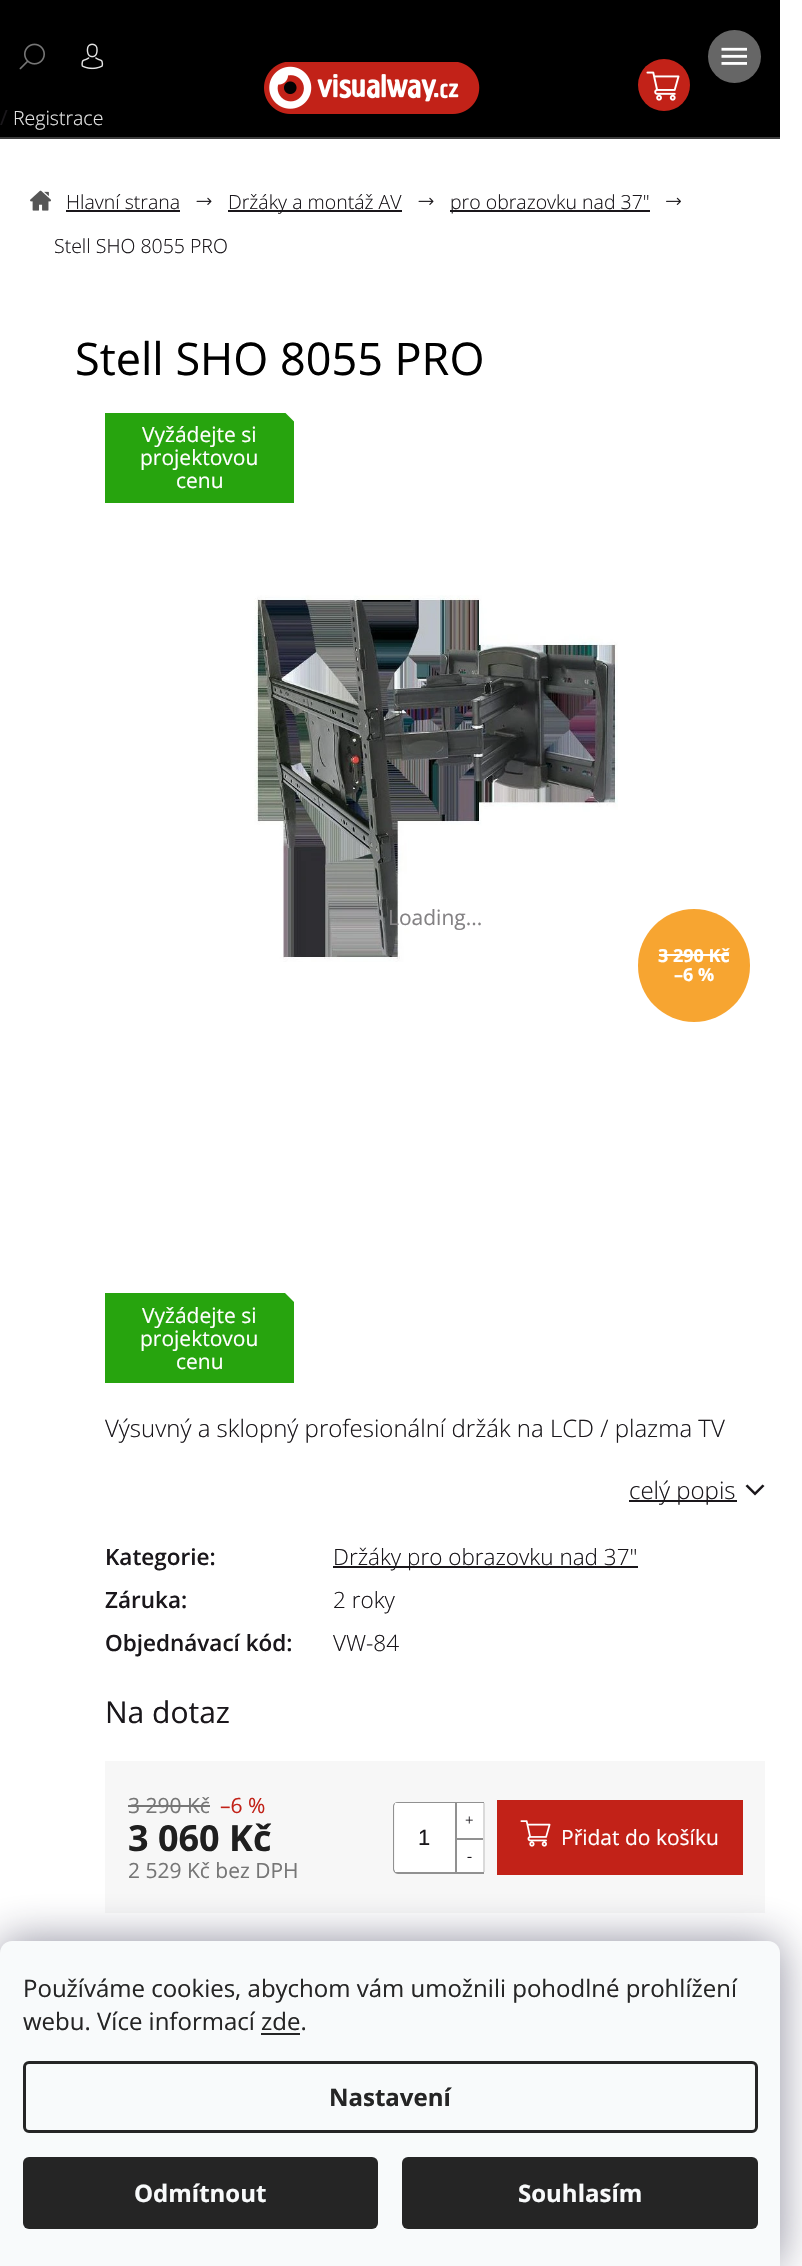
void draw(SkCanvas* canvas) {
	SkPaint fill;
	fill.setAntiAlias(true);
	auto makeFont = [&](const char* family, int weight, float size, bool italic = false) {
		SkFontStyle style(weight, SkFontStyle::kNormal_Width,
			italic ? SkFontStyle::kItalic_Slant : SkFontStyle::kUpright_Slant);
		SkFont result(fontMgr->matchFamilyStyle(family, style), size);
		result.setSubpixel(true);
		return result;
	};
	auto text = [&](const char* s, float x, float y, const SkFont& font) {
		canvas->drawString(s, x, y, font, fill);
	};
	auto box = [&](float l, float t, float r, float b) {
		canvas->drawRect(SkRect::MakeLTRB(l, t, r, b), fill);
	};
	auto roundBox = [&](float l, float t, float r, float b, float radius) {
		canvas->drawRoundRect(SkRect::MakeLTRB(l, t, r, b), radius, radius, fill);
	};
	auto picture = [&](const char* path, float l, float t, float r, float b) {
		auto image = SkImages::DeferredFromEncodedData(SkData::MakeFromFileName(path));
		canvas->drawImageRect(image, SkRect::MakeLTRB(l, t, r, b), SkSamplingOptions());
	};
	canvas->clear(0xFFFFFFFF);
	fill.setColor(0xFF000000);
	box(0, 0, 780, 137);
	picture("image0.png", 264, 62, 480, 114);
	fill.setColor(0xFFC22218);
	canvas->drawCircle(664, 85, 26, fill);
	picture("image1.png", 646, 71, 680, 101);
	fill.setColor(0xFF3C3C3C);
	box(0, 137, 780, 139);
	picture("image2.png", 19, 43, 45, 70);
	picture("image3.png", 81, 43, 104, 70);
	fill.setColor(0xFF666666);
	canvas->drawCircle(734.5f, 56.5f, 26.5f, fill);
	picture("image4.png", 721, 47, 747, 65);
	picture("image5.png", 30, 190, 51, 211);
	fill.setColor(0xFF1A171B);
	box(66, 210, 180, 212);
	picture("image6.png", 196, 197, 212, 205);
	box(228, 210, 402, 212);
	picture("image6.png", 418, 197, 434, 205);
	box(450, 210, 650, 212);
	picture("image7.png", 666, 197, 681, 205);
	fill.setColor(0xFF27A40E);
	box(105, 413, 294, 503);
	fill.setColor(0xFFFFFFFF);
	canvas->drawPath(SkPathBuilder().moveTo(294, 412.5f).lineTo(294, 421.5f).lineTo(285, 412.5f).close().detach(), fill);
	picture("image8.png", 252, 595, 618, 962);
	fill.setColor(0xFFF7A531);
	roundBox(638, 909, 750, 1022, 56);
	fill.setColor(0xFFFFFFFF);
	box(659, 954, 729, 956);
	fill.setColor(0xFF27A40E);
	box(105, 1293, 294, 1383);
	fill.setColor(0xFFFFFFFF);
	canvas->drawPath(SkPathBuilder().moveTo(294, 1293).lineTo(294, 1302).lineTo(285, 1293).close().detach(), fill);
	fill.setColor(0xFF1A171B);
	box(629, 1500, 737, 1502);
	canvas->drawPath(SkPathBuilder().moveTo(745.5f, 1486).lineTo(747.5f, 1484.5f).lineTo(755, 1492).lineTo(762.5f, 1484.5f).lineTo(764.5f, 1486).lineTo(755, 1495.5f).close().detach(), fill);
	box(333, 1566, 638, 1568);
	fill.setColor(0xFFF7F7F7);
	box(105, 1761, 765, 1913);
	fill.setColor(0xFF767676);
	box(128, 1805, 210, 1807);
	fill.setColor(0xFF919191);
	canvas->drawPath(SkPathBuilder(SkPathFillType::kEvenOdd).moveTo(398, 1802).lineTo(484, 1802).lineTo(484, 1874).lineTo(398, 1874).cubicTo(395, 1874, 393, 1871, 393, 1869).lineTo(393, 1806).cubicTo(393, 1804, 395, 1802, 398, 1802).close().moveTo(398, 1803).lineTo(484, 1803).lineTo(484, 1872).lineTo(398, 1872).cubicTo(396, 1872, 394, 1871, 394, 1869).lineTo(394, 1806).cubicTo(394, 1804, 396, 1803, 398, 1803).close().detach(), fill);
	fill.setColor(0xFFFFFFFF);
	box(457, 1803, 483, 1838);
	fill.setColor(0xFFDADADA);
	box(483, 1803, 485, 1838);
	fill.setColor(0xFF919191);
	box(455, 1803, 457, 1838);
	fill.setColor(0xFFFFFFFF);
	box(395, 1803, 455, 1872);
	box(457, 1840, 483, 1872);
	fill.setColor(0xFF919191);
	box(455, 1838, 485, 1840);
	fill.setColor(0xFFDADADA);
	box(483, 1838, 485, 1872);
	fill.setColor(0xFF919191);
	box(455, 1838, 457, 1872);
	fill.setColor(0xFFC22218);
	box(497, 1800, 743, 1875);
	picture("image9.png", 520, 1820, 551, 1847);
	fill.setColor(0x801B1939);
	fill.setMaskFilter(SkMaskFilter::MakeBlur(kNormal_SkBlurStyle, 22.5f));
	canvas->drawRoundRect(SkRect::MakeLTRB(0, 1941, 780, 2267), 12, 12, fill);
	fill.setMaskFilter(nullptr);
	fill.setColor(0xFFF8FAFB);
	canvas->drawPath(SkPathBuilder().moveTo(12, 1941).lineTo(768, 1941).cubicTo(774.5f, 1941, 780, 1946.5f, 780, 1953).lineTo(780, 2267).lineTo(0, 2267).lineTo(0, 1953).cubicTo(0, 1946.5f, 5.5f, 1941, 12, 1941).close().detach(), fill);
	fill.setColor(0xFF252525);
	box(261, 2033, 300, 2035);
	fill.setStyle(SkPaint::kStroke_Style);
	fill.setStrokeWidth(3);
	canvas->drawRoundRect(SkRect::MakeLTRB(24.5f, 2062.5f, 756.5f, 2131.5f), 4.5f, 4.5f, fill);
	fill.setStyle(SkPaint::kFill_Style);
	roundBox(23, 2157, 378, 2229, 6);
	roundBox(402, 2157, 758, 2229, 6);
	auto font1 = makeFont("Open Sans", 400, 21);
	fill.setColor(0xFF1A171B);
	text("/", 0, 125, font1);
	auto font2 = makeFont("Open Sans", 300, 19.5f);
	fill.setColor(0xFFE5E5E5);
	text("Registrace", 13, 125, font2);
	fill.setColor(0xFF1A171B);
	text("Hlavní strana", 66, 209, font2);
	text("Držáky a montáž AV", 228, 209, font2);
	text("pro obrazovku nad 37\"", 450, 209, font2);
	text("Stell SHO 8055 PRO", 54, 253, font2);
	auto font3 = makeFont("Open Sans", 400, 45);
	fill.setColor(0xFF000000);
	text("Stell SHO 8055 PRO", 75, 375, font3);
	fill.setColor(0xFFFFFFFF);
	text("Vyžádejte si", 142, 442, font1);
	text("projektovou", 140, 465, font1);
	text("cenu", 176, 488, font1);
	fill.setColor(0xFF848284);
	text("Loading...", 388, 925, font1);
	auto font4 = makeFont("Open Sans", 700, 18);
	fill.setColor(0xFFFFFFFF);
	text("3 290 Kč", 658, 962, font4);
	text("–6 %", 674, 981, font4);
	text("Vyžádejte si", 142, 1323, font1);
	text("projektovou", 140, 1346, font1);
	text("cenu", 176, 1369, font1);
	auto font5 = makeFont("Open Sans", 300, 24);
	fill.setColor(0xFF1A171B);
	text("Výsuvný a sklopný profesionální držák na LCD / plazma TV", 105, 1437, font5);
	text("celý popis", 629, 1499, font5);
	auto font6 = makeFont("Open Sans", 600, 22.5f);
	text("Kategorie:", 105, 1565, font6);
	auto font7 = makeFont("Open Sans", 300, 22.5f);
	text("Držáky pro obrazovku nad 37\"", 333, 1565, font7);
	text("Záruka:", 105, 1608, font6);
	text("2 roky", 333, 1608, font7);
	text("Objednávací kód:", 105, 1651, font6);
	text("VW-84", 333, 1651, font7);
	auto font8 = makeFont("Open Sans", 400, 30);
	text("Na dotaz", 105, 1723, font8);
	fill.setColor(0xFF767676);
	text("3 290 Kč", 128, 1813, font1);
	fill.setColor(0xFFC22218);
	text("–6 %", 220, 1813, font1);
	auto font9 = makeFont("Open Sans", 700, 36);
	fill.setColor(0xFF1F1F1F);
	text("3 060 Kč", 128, 1851, font9);
	fill.setColor(0xFF767676);
	text("2 529 Kč bez DPH", 128, 1878, font1);
	auto font10 = makeFont("Liberation Serif", 400, 15);
	fill.setColor(0xFF1A171B);
	text("+", 465, 1825, font10);
	auto font11 = makeFont("Liberation Sans", 400, 22);
	text("1", 418, 1845, font11);
	text("-", 467, 1861, font10);
	fill.setColor(0xFFFFFFFF);
	text("Přidat do košíku", 561, 1845, font1);
	auto font12 = makeFont("Open Sans", 400, 24);
	fill.setColor(0xFF252525);
	text("Používáme cookies, abychom vám umožnili pohodlné prohlížení", 23, 1997, font12);
	text("webu. Více informací zde.", 23, 2030, font12);
	auto font13 = makeFont("Open Sans", 700, 24);
	text("Nastavení", 329, 2106, font13);
	fill.setColor(0xFFF8FAFB);
	text("Odmítnout", 134, 2202, font13);
	text("Souhlasím", 518, 2202, font13);
}
